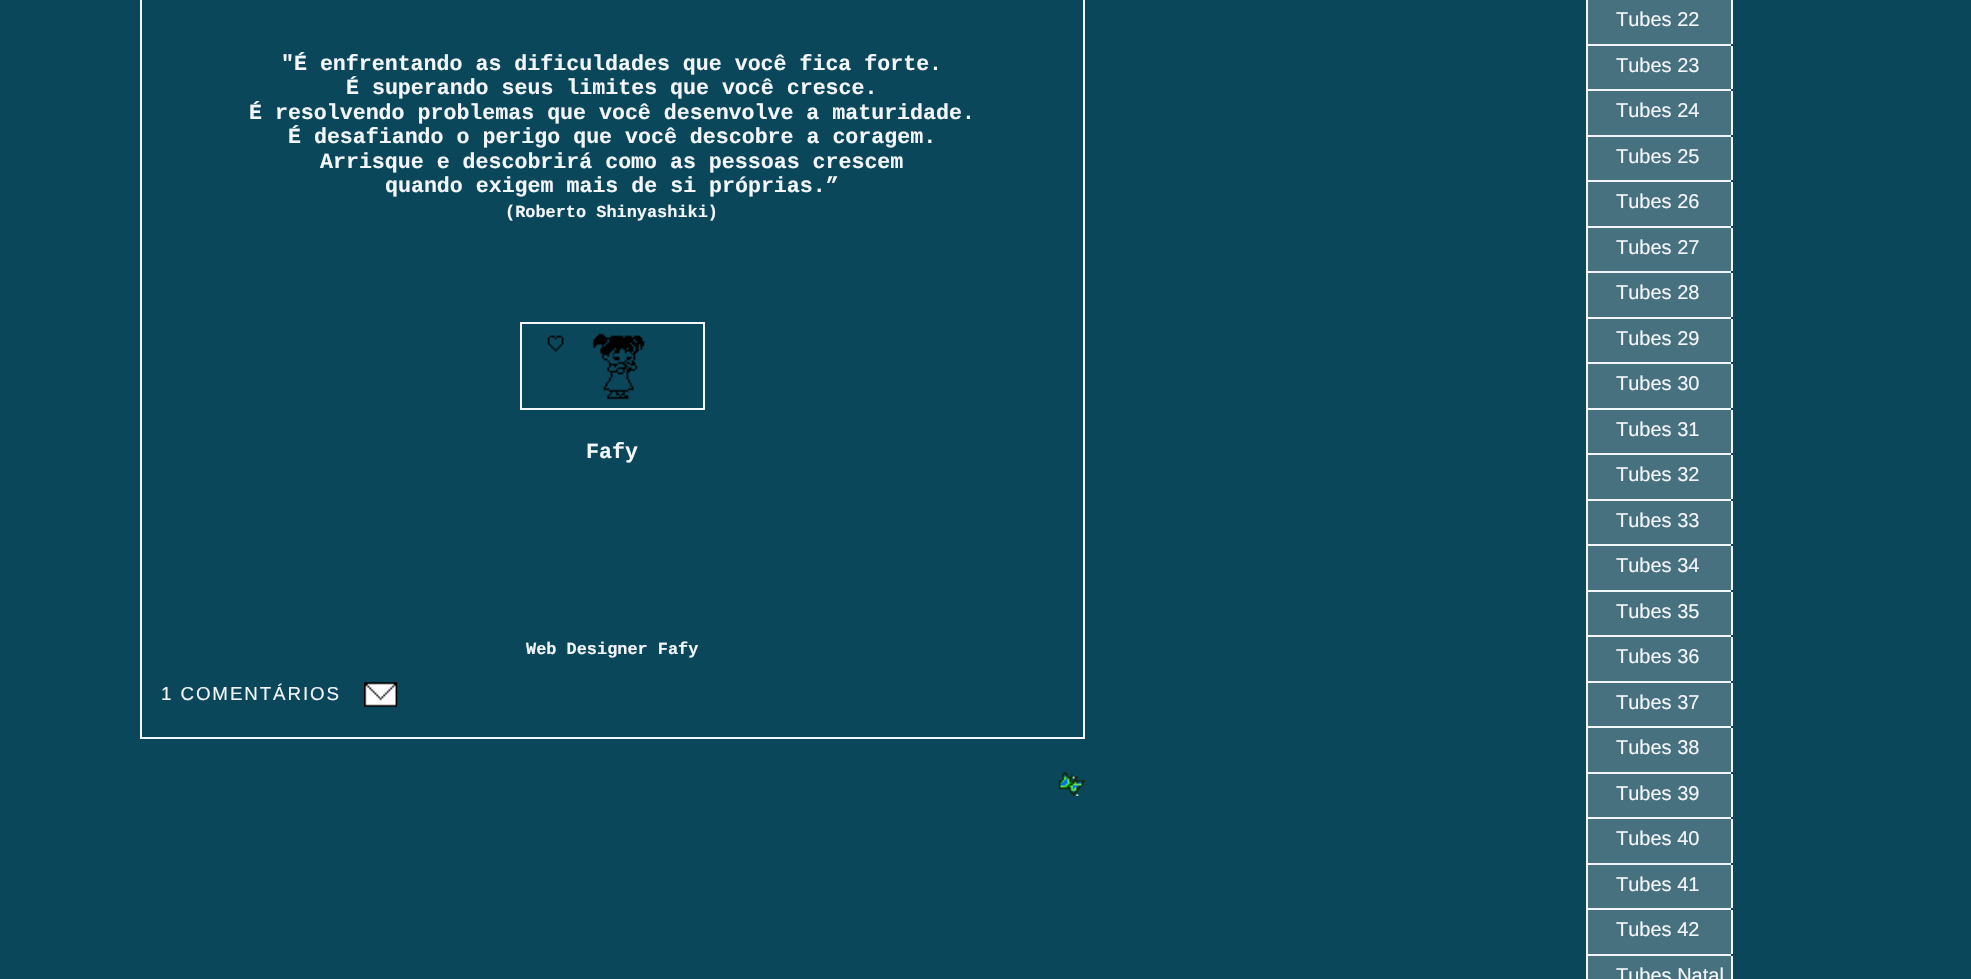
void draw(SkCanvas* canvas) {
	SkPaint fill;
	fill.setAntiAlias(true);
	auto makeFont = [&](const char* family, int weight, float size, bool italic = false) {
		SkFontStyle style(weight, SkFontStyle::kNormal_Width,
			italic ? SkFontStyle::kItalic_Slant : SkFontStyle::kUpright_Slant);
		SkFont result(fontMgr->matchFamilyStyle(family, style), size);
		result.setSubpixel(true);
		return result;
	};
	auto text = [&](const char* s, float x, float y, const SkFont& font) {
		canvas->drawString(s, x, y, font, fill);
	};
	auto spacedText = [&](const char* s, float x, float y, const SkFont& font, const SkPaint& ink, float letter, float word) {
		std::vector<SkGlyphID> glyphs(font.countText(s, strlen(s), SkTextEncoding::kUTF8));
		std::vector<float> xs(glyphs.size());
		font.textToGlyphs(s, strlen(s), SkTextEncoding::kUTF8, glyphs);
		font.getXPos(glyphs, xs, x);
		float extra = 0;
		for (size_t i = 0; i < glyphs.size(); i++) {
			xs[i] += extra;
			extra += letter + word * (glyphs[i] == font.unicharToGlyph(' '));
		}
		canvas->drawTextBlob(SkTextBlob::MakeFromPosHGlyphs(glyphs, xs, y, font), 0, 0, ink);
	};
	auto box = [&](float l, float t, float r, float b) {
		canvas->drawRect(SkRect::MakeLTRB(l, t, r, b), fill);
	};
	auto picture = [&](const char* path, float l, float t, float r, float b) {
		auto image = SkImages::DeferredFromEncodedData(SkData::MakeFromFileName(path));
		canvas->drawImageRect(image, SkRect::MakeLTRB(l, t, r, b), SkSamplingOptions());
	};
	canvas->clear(0xFF0B475B);
	fill.setStyle(SkPaint::kStroke_Style);
	fill.setStrokeWidth(2);
	fill.setColor(0xFFF3F6FB);
	canvas->drawRect(SkRect::MakeLTRB(141, -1, 1084, 738), fill);
	canvas->drawRect(SkRect::MakeLTRB(521, 323, 704, 409), fill);
	picture("image0.png", 547, 333, 645, 400);
	picture("image1.png", 364, 682, 398, 707);
	picture("image2.png", 1058, 771, 1085, 796);
	fill.setStyle(SkPaint::kFill_Style);
	fill.setColor(0xFF48717F);
	box(1588, 0, 1731, 44);
	fill.setColor(0xFFF3F6FB);
	box(1731, 0, 1733, 44);
	box(1586, 0, 1588, 44);
	box(1586, 44, 1731, 46);
	fill.setColor(0xFF48717F);
	box(1588, 46, 1731, 89);
	fill.setColor(0xFFF3F6FB);
	box(1731, 46, 1733, 89);
	box(1586, 46, 1588, 89);
	box(1586, 89, 1731, 91);
	fill.setColor(0xFF48717F);
	box(1588, 91, 1731, 135);
	fill.setColor(0xFFF3F6FB);
	box(1731, 91, 1733, 135);
	box(1586, 91, 1588, 135);
	box(1586, 135, 1731, 137);
	fill.setColor(0xFF48717F);
	box(1588, 137, 1731, 180);
	fill.setColor(0xFFF3F6FB);
	box(1731, 137, 1733, 180);
	box(1586, 137, 1588, 180);
	box(1586, 180, 1731, 182);
	fill.setColor(0xFF48717F);
	box(1588, 182, 1731, 226);
	fill.setColor(0xFFF3F6FB);
	box(1731, 182, 1733, 226);
	box(1586, 182, 1588, 226);
	box(1586, 226, 1731, 228);
	fill.setColor(0xFF48717F);
	box(1588, 228, 1731, 271);
	fill.setColor(0xFFF3F6FB);
	box(1731, 228, 1733, 271);
	box(1586, 228, 1588, 271);
	box(1586, 271, 1731, 273);
	fill.setColor(0xFF48717F);
	box(1588, 273, 1731, 317);
	fill.setColor(0xFFF3F6FB);
	box(1731, 273, 1733, 317);
	box(1586, 273, 1588, 317);
	box(1586, 317, 1731, 319);
	fill.setColor(0xFF48717F);
	box(1588, 319, 1731, 362);
	fill.setColor(0xFFF3F6FB);
	box(1731, 319, 1733, 362);
	box(1586, 319, 1588, 362);
	box(1586, 362, 1731, 364);
	fill.setColor(0xFF48717F);
	box(1588, 364, 1731, 408);
	fill.setColor(0xFFF3F6FB);
	box(1731, 364, 1733, 408);
	box(1586, 364, 1588, 408);
	box(1586, 408, 1731, 410);
	fill.setColor(0xFF48717F);
	box(1588, 410, 1731, 453);
	fill.setColor(0xFFF3F6FB);
	box(1731, 410, 1733, 453);
	box(1586, 410, 1588, 453);
	box(1586, 453, 1731, 455);
	fill.setColor(0xFF48717F);
	box(1588, 455, 1731, 499);
	fill.setColor(0xFFF3F6FB);
	box(1731, 455, 1733, 499);
	box(1586, 455, 1588, 499);
	box(1586, 499, 1731, 501);
	fill.setColor(0xFF48717F);
	box(1588, 501, 1731, 544);
	fill.setColor(0xFFF3F6FB);
	box(1731, 501, 1733, 544);
	box(1586, 501, 1588, 544);
	box(1586, 544, 1731, 546);
	fill.setColor(0xFF48717F);
	box(1588, 546, 1731, 590);
	fill.setColor(0xFFF3F6FB);
	box(1731, 546, 1733, 590);
	box(1586, 546, 1588, 590);
	box(1586, 590, 1731, 592);
	fill.setColor(0xFF48717F);
	box(1588, 592, 1731, 635);
	fill.setColor(0xFFF3F6FB);
	box(1731, 592, 1733, 635);
	box(1586, 592, 1588, 635);
	box(1586, 635, 1731, 637);
	fill.setColor(0xFF48717F);
	box(1588, 637, 1731, 681);
	fill.setColor(0xFFF3F6FB);
	box(1731, 637, 1733, 681);
	box(1586, 637, 1588, 681);
	box(1586, 681, 1731, 683);
	fill.setColor(0xFF48717F);
	box(1588, 683, 1731, 726);
	fill.setColor(0xFFF3F6FB);
	box(1731, 683, 1733, 726);
	box(1586, 683, 1588, 726);
	box(1586, 726, 1731, 728);
	fill.setColor(0xFF48717F);
	box(1588, 728, 1731, 772);
	fill.setColor(0xFFF3F6FB);
	box(1731, 728, 1733, 772);
	box(1586, 728, 1588, 772);
	box(1586, 772, 1731, 774);
	fill.setColor(0xFF48717F);
	box(1588, 774, 1731, 817);
	fill.setColor(0xFFF3F6FB);
	box(1731, 774, 1733, 817);
	box(1586, 774, 1588, 817);
	box(1586, 817, 1731, 819);
	fill.setColor(0xFF48717F);
	box(1588, 819, 1731, 863);
	fill.setColor(0xFFF3F6FB);
	box(1731, 819, 1733, 863);
	box(1586, 819, 1588, 863);
	box(1586, 863, 1731, 865);
	fill.setColor(0xFF48717F);
	box(1588, 865, 1731, 908);
	fill.setColor(0xFFF3F6FB);
	box(1731, 865, 1733, 908);
	box(1586, 865, 1588, 908);
	box(1586, 908, 1731, 910);
	fill.setColor(0xFF48717F);
	box(1588, 910, 1731, 954);
	fill.setColor(0xFFF3F6FB);
	box(1731, 910, 1733, 954);
	box(1586, 910, 1588, 954);
	box(1586, 954, 1731, 956);
	fill.setColor(0xFF48717F);
	box(1588, 956, 1731, 979);
	fill.setColor(0xFFF3F6FB);
	box(1731, 956, 1733, 979);
	box(1586, 956, 1588, 979);
	auto font1 = makeFont("Liberation Mono", 700, 21.6f);
	text("\"É enfrentando as dificuldades que você fica forte.", 281, 70, font1);
	text("É superando seus limites que você cresce.", 346, 94, font1);
	text("É resolvendo problemas que você desenvolve a maturidade.", 249, 119, font1);
	text("É desafiando o perigo que você descobre a coragem.", 288, 143, font1);
	text("Arrisque e descobrirá como as pessoas crescem", 320, 168, font1);
	text("quando exigem mais de si próprias.”", 385, 192, font1);
	auto font2 = makeFont("Liberation Mono", 700, 16.9f);
	text("(Roberto Shinyashiki)", 505, 217, font2);
	text("Fafy", 586, 458, font1);
	text("Web Designer Fafy", 526, 654, font2);
	auto font3 = makeFont("Liberation Sans", 400, 18.75f);
	spacedText("1 COMENTÁRIOS", 161, 700, font3, fill, 1.9f, 0);
	auto font4 = makeFont("Liberation Sans", 400, 20);
	text("Tubes 22", 1616, 26, font4);
	text("Tubes 23", 1616, 72, font4);
	text("Tubes 24", 1616, 117, font4);
	text("Tubes 25", 1616, 163, font4);
	text("Tubes 26", 1616, 208, font4);
	text("Tubes 27", 1616, 254, font4);
	text("Tubes 28", 1616, 299, font4);
	text("Tubes 29", 1616, 345, font4);
	text("Tubes 30", 1616, 390, font4);
	text("Tubes 31", 1616, 436, font4);
	text("Tubes 32", 1616, 481, font4);
	text("Tubes 33", 1616, 527, font4);
	text("Tubes 34", 1616, 572, font4);
	text("Tubes 35", 1616, 618, font4);
	text("Tubes 36", 1616, 663, font4);
	text("Tubes 37", 1616, 709, font4);
	text("Tubes 38", 1616, 754, font4);
	text("Tubes 39", 1616, 800, font4);
	text("Tubes 40", 1616, 845, font4);
	text("Tubes 41", 1616, 891, font4);
	text("Tubes 42", 1616, 936, font4);
	text("Tubes Natal", 1616, 982, font4);
}
